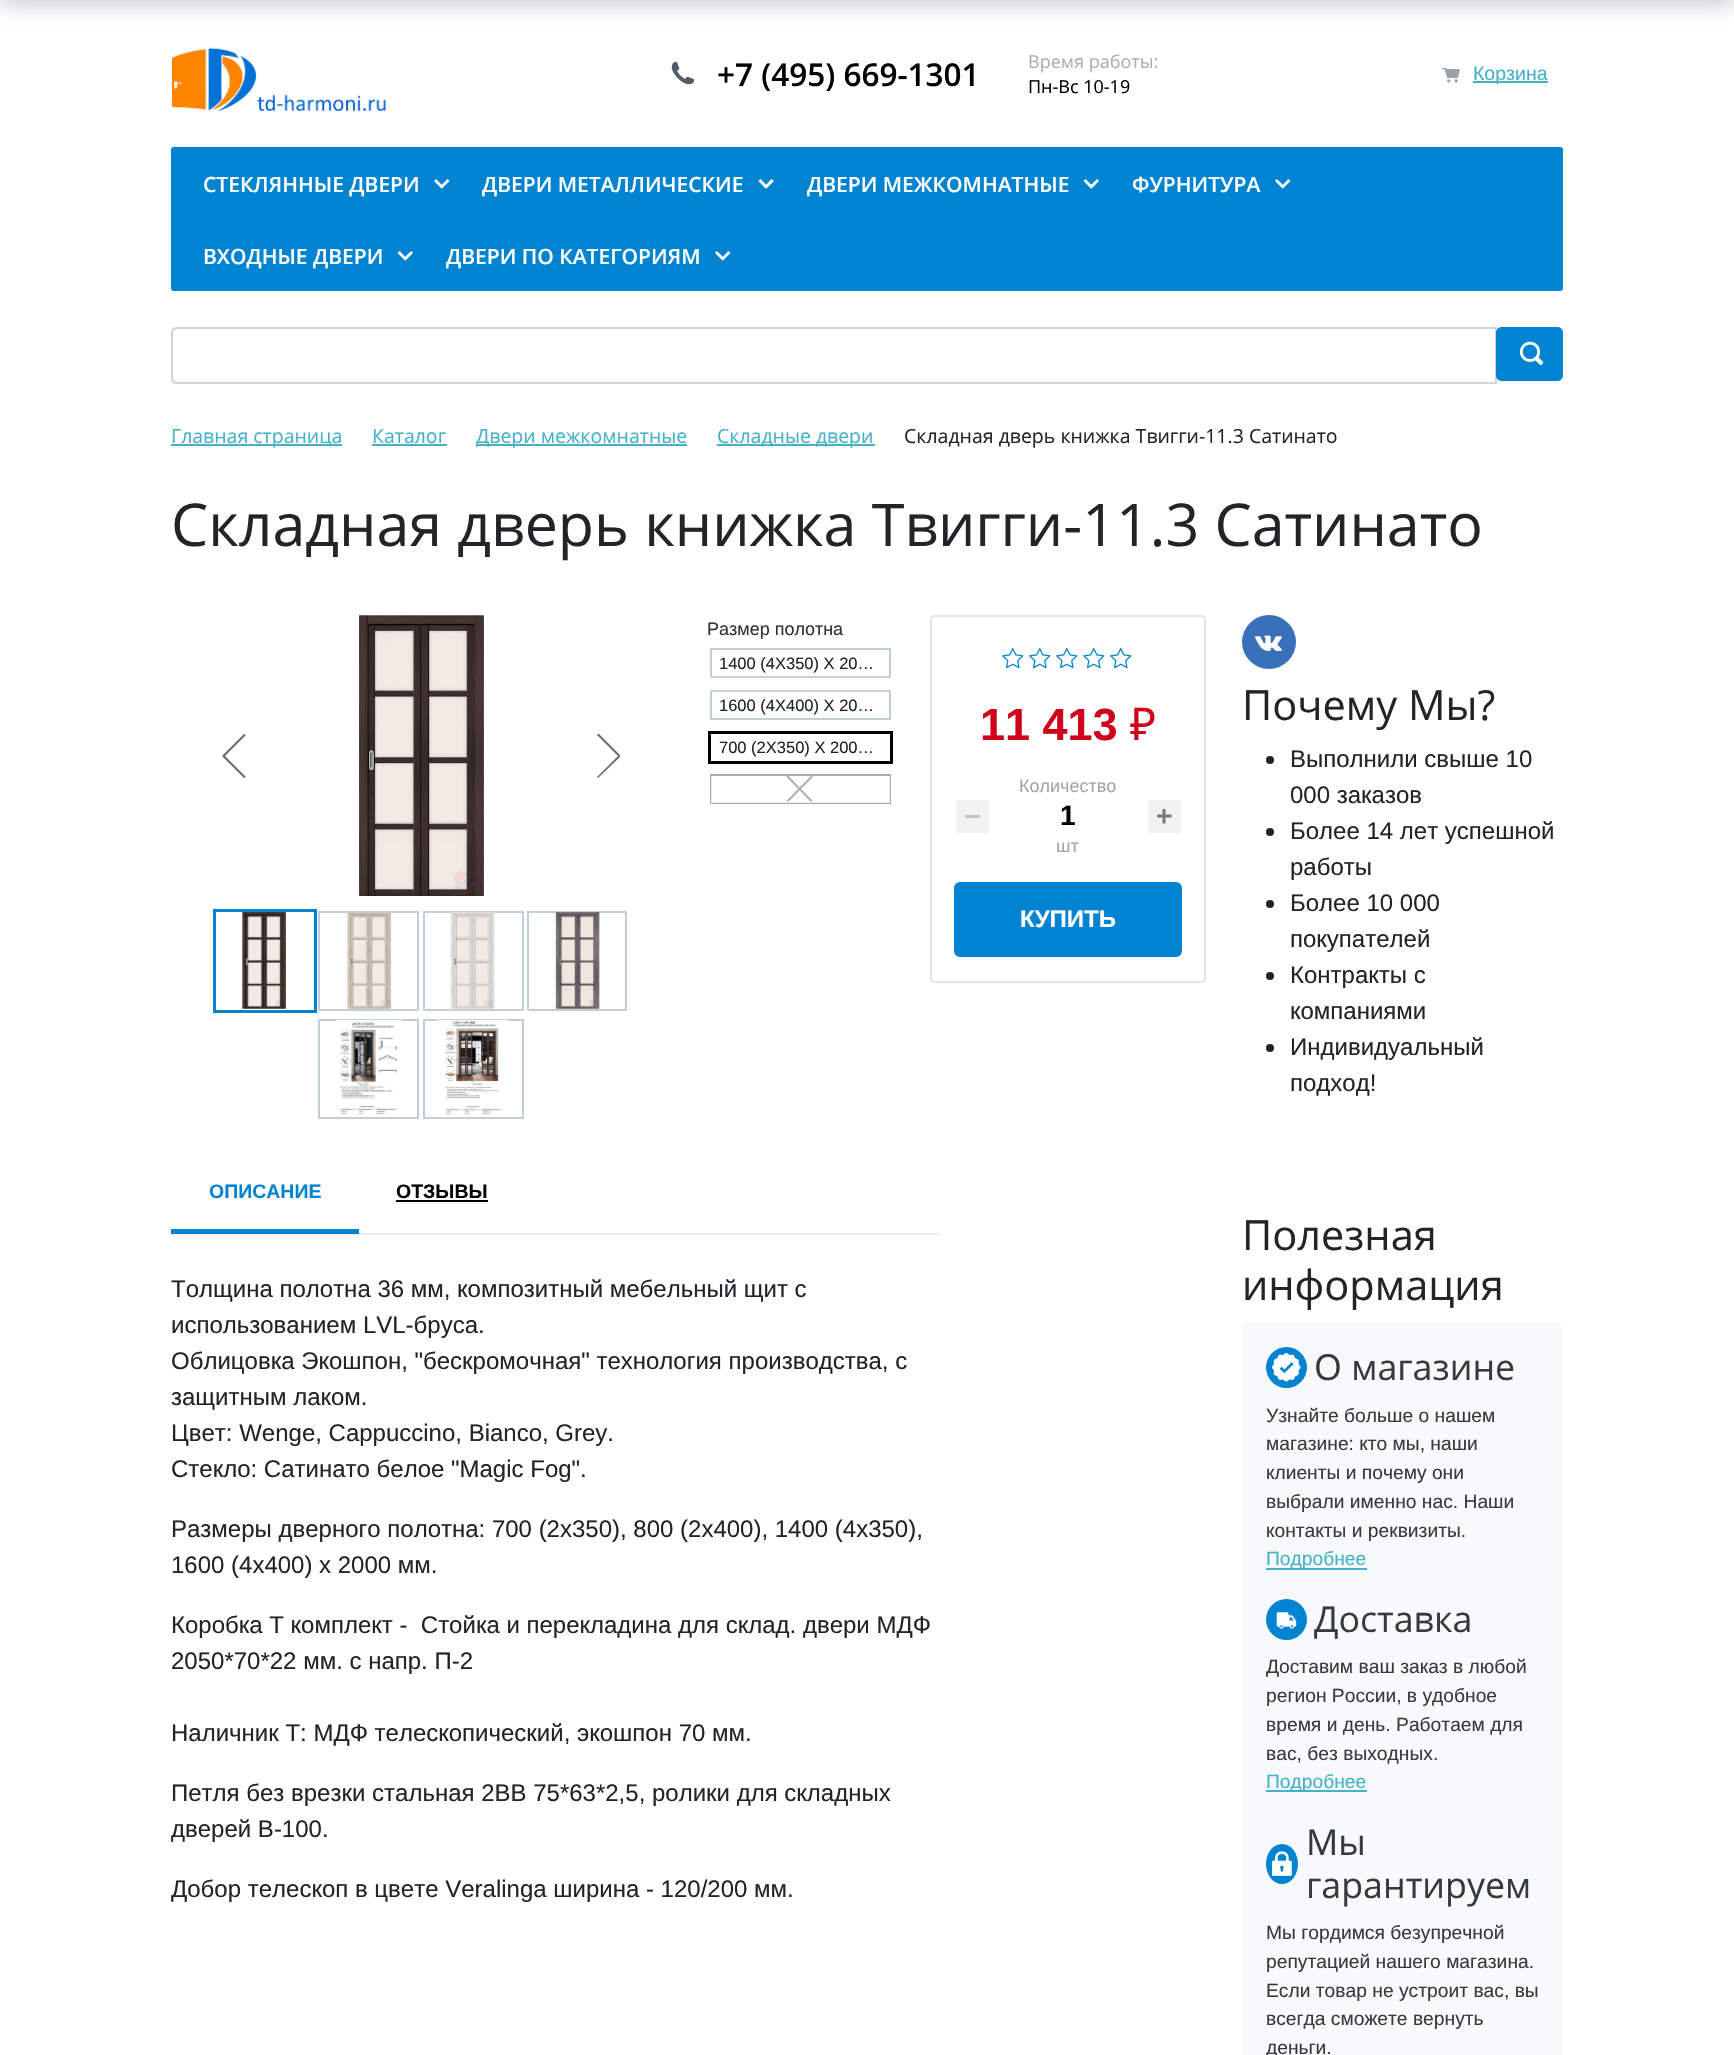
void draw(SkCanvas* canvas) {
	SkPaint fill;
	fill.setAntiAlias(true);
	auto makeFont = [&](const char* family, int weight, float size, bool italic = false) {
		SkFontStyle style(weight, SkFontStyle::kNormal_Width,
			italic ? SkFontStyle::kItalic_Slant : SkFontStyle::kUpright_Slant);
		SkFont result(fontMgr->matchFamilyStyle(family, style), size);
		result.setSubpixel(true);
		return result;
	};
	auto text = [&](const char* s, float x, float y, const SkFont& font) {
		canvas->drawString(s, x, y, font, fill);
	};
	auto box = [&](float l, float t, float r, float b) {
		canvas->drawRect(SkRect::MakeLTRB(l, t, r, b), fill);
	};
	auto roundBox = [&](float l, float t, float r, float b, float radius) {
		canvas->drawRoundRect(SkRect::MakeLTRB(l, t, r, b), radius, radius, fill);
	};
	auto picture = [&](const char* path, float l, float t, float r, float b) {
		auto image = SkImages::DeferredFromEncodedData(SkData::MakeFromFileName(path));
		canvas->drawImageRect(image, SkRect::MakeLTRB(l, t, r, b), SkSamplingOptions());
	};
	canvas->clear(0xFFFFFFFF);
	picture("image0.png", 171, 47, 386, 111);
	picture("image1.png", 671, 61, 695, 85);
	picture("image2.png", 1442, 68, 1460, 83);
	fill.setColor(0xFF44B1C9);
	box(1473, 81, 1548, 83);
	fill.setColor(0xFF0083D1);
	roundBox(171, 147, 1563, 291, 3);
	fill.setColor(0xFFFFFFFF);
	canvas->drawPath(SkPathBuilder().moveTo(440, 186.5f).lineTo(447.5f, 179).lineTo(449.5f, 181).lineTo(442, 188.5f).close().detach(), fill);
	canvas->drawPath(SkPathBuilder().moveTo(436, 179).lineTo(443.5f, 186.5f).lineTo(441.5f, 188.5f).lineTo(434, 181).close().detach(), fill);
	canvas->drawPath(SkPathBuilder().moveTo(764.5f, 186.5f).lineTo(771.5f, 179).lineTo(774, 181).lineTo(766.5f, 188.5f).close().detach(), fill);
	canvas->drawPath(SkPathBuilder().moveTo(760.5f, 179).lineTo(768, 186.5f).lineTo(765.5f, 188.5f).lineTo(758.5f, 181).close().detach(), fill);
	canvas->drawPath(SkPathBuilder().moveTo(1089.5f, 186.5f).lineTo(1097, 179).lineTo(1099, 181).lineTo(1091.5f, 188.5f).close().detach(), fill);
	canvas->drawPath(SkPathBuilder().moveTo(1085.5f, 179).lineTo(1093, 186.5f).lineTo(1091, 188.5f).lineTo(1083.5f, 181).close().detach(), fill);
	canvas->drawPath(SkPathBuilder().moveTo(1281, 186.5f).lineTo(1288.5f, 179).lineTo(1290.5f, 181).lineTo(1283, 188.5f).close().detach(), fill);
	canvas->drawPath(SkPathBuilder().moveTo(1277, 179).lineTo(1284.5f, 186.5f).lineTo(1282.5f, 188.5f).lineTo(1275, 181).close().detach(), fill);
	canvas->drawPath(SkPathBuilder().moveTo(403.5f, 258.5f).lineTo(411, 251).lineTo(413, 253).lineTo(405.5f, 260.5f).close().detach(), fill);
	canvas->drawPath(SkPathBuilder().moveTo(399.5f, 251).lineTo(407, 258.5f).lineTo(405, 260.5f).lineTo(397.5f, 253).close().detach(), fill);
	canvas->drawPath(SkPathBuilder().moveTo(721, 258.5f).lineTo(728.5f, 251).lineTo(730.5f, 253).lineTo(723, 260.5f).close().detach(), fill);
	canvas->drawPath(SkPathBuilder().moveTo(717, 251).lineTo(724.5f, 258.5f).lineTo(722.5f, 260.5f).lineTo(715, 253).close().detach(), fill);
	fill.setStyle(SkPaint::kStroke_Style);
	fill.setStrokeWidth(2);
	fill.setColor(0xFFCED4DA);
	canvas->drawPath(SkPathBuilder().moveTo(177, 328).lineTo(1496, 328).lineTo(1496, 383).lineTo(177, 383).cubicTo(174, 383, 172, 381, 172, 378).lineTo(172, 333).cubicTo(172, 330, 174, 328, 177, 328).close().detach(), fill);
	fill.setStyle(SkPaint::kFill_Style);
	fill.setColor(0xFF0083D1);
	roundBox(1496, 327, 1563, 381, 6);
	picture("image3.png", 1519, 341, 1544, 365);
	fill.setStyle(SkPaint::kStroke_Style);
	canvas->drawRoundRect(SkRect::MakeLTRB(1497, 328, 1562, 380), 5, 5, fill);
	fill.setStyle(SkPaint::kFill_Style);
	fill.setColor(0xFF44B1C9);
	box(171, 444, 342, 446);
	box(372, 444, 447, 446);
	box(477, 444, 687, 446);
	box(717, 444, 875, 446);
	fill.setColor(0x3B20364A);
	fill.setMaskFilter(SkMaskFilter::MakeBlur(kNormal_SkBlurStyle, 10.5f));
	canvas->drawRect(SkRect::MakeLTRB(0, -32, 1734, 6), fill);
	fill.setMaskFilter(nullptr);
	fill.setColor(0xFF6E6E6E);
	canvas->drawPath(SkPathBuilder(SkPathFillType::kEvenOdd).moveTo(246, 777).lineTo(225, 756).lineTo(246, 735).lineTo(244, 734).lineTo(222, 756).lineTo(244, 778).close().detach(), fill);
	picture("image4.png", 359, 615, 484, 896);
	picture("image5.png", 359, 615, 484, 896);
	canvas->save();
	canvas->clipRect(SkRect::MakeLTRB(596, 734, 620, 779));
	canvas->drawPath(SkPathBuilder(SkPathFillType::kEvenOdd).moveTo(597, 735).lineTo(618, 756).lineTo(597, 777).lineTo(598, 778).lineTo(621, 756).lineTo(598, 733).close().detach(), fill);
	canvas->restore();
	fill.setStyle(SkPaint::kStroke_Style);
	fill.setStrokeWidth(3);
	fill.setColor(0xFF0083D1);
	canvas->drawRect(SkRect::MakeLTRB(214.5f, 910.5f, 315.5f, 1011.5f), fill);
	picture("image6.png", 242, 912, 286, 1009);
	fill.setStrokeWidth(2);
	fill.setColor(0xFFC0CFDA);
	canvas->drawRect(SkRect::MakeLTRB(319, 912, 418, 1010), fill);
	picture("image7.png", 347, 912, 391, 1009);
	canvas->drawRect(SkRect::MakeLTRB(424, 912, 523, 1010), fill);
	picture("image8.png", 450, 912, 495, 1009);
	canvas->drawRect(SkRect::MakeLTRB(528, 912, 626, 1010), fill);
	picture("image9.png", 555, 912, 600, 1009);
	canvas->drawRect(SkRect::MakeLTRB(319, 1020, 418, 1118), fill);
	picture("image10.png", 335, 1020, 402, 1114);
	canvas->drawRect(SkRect::MakeLTRB(424, 1020, 523, 1118), fill);
	picture("image11.png", 437, 1020, 508, 1115);
	canvas->drawRect(SkRect::MakeLTRB(711, 649, 890, 677), fill);
	canvas->drawRect(SkRect::MakeLTRB(711, 691, 890, 719), fill);
	fill.setStrokeWidth(3);
	fill.setColor(0xFF000000);
	canvas->drawRect(SkRect::MakeLTRB(709.5f, 732.5f, 891.5f, 762.5f), fill);
	fill.setStrokeWidth(2);
	fill.setColor(0xFFA9ADB4);
	canvas->drawRect(SkRect::MakeLTRB(711, 775, 890, 803), fill);
	fill.setStyle(SkPaint::kFill_Style);
	fill.setColor(0xBFFFFFFF);
	box(711, 776, 890, 803);
	picture("image12.png", 786, 776, 813, 802);
	fill.setStyle(SkPaint::kStroke_Style);
	fill.setColor(0xFFE4E4E4);
	canvas->drawRoundRect(SkRect::MakeLTRB(931, 616, 1205, 982), 4, 4, fill);
	picture("image13.png", 1002, 647, 1024, 669);
	picture("image13.png", 1029, 647, 1051, 669);
	picture("image13.png", 1056, 647, 1078, 669);
	picture("image13.png", 1083, 647, 1105, 669);
	picture("image13.png", 1110, 647, 1132, 669);
	fill.setStyle(SkPaint::kFill_Style);
	fill.setColor(0xFFF2F2F2);
	roundBox(956, 800, 989, 833, 3);
	fill.setColor(0xFFC2C5C9);
	box(965, 815, 980, 818);
	fill.setColor(0xFFF2F2F2);
	roundBox(1148, 800, 1181, 833, 3);
	picture("image14.png", 1157, 809, 1172, 824);
	fill.setColor(0xFF0083D1);
	canvas->drawRoundRect(SkRect::MakeLTRB(955, 883, 1181, 956), 5, 5, fill);
	fill.setStyle(SkPaint::kStroke_Style);
	canvas->drawRoundRect(SkRect::MakeLTRB(955, 883, 1181, 956), 5, 5, fill);
	fill.setStyle(SkPaint::kFill_Style);
	fill.setColor(0xFFEDEDED);
	box(171, 1233, 939, 1235);
	fill.setColor(0xFF0083D1);
	box(171, 1229, 359, 1234);
	fill.setColor(0xFF000000);
	box(396, 1200, 488, 1202);
	fill.setColor(0xFF3871BA);
	canvas->drawCircle(1269, 642, 27, fill);
	picture("image15.png", 1254, 635, 1282, 651);
	fill.setColor(0xFF212529);
	canvas->drawCircle(1270, 760, 4, fill);
	canvas->drawCircle(1270, 832, 4, fill);
	canvas->drawCircle(1270, 904, 4, fill);
	canvas->drawCircle(1270, 976, 4, fill);
	canvas->drawCircle(1270, 1048, 4, fill);
	fill.setColor(0xFFF8F9FA);
	roundBox(1242, 1322, 1563, 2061, 6);
	fill.setColor(0xFF0083D1);
	canvas->drawCircle(1286.5f, 1367.5f, 20.5f, fill);
	picture("image16.png", 1272, 1353, 1301, 1382);
	fill.setColor(0xFF44B1C9);
	box(1266, 1568, 1367, 1570);
	fill.setColor(0xFF0083D1);
	canvas->drawCircle(1286.5f, 1619.5f, 20.5f, fill);
	picture("image17.png", 1276, 1612, 1297, 1629);
	fill.setColor(0xFF44B1C9);
	box(1266, 1790, 1367, 1792);
	fill.setColor(0xFF0083D1);
	canvas->drawOval(SkRect::MakeLTRB(1266, 1844, 1298, 1884), fill);
	picture("image18.png", 1272, 1851, 1292, 1876);
	auto font1 = makeFont("Open Sans", 600, 31.5f);
	fill.setColor(0xFF000000);
	text("+7 (495) 669-1301", 717, 86, font1);
	auto font2 = makeFont("Open Sans", 400, 18);
	fill.setColor(0xFFADADAD);
	text("Время работы:", 1028, 68, font2);
	fill.setColor(0xFF000000);
	text("Пн-Вс 10-19", 1028, 93, font2);
	auto font3 = makeFont("Liberation Sans", 400, 19.5f);
	fill.setColor(0xFF44B1C9);
	text("Корзина", 1473, 80, font3);
	auto font4 = makeFont("Open Sans", 600, 21);
	fill.setColor(0xFFFFFFFF);
	text("СТЕКЛЯННЫЕ ДВЕРИ", 203, 192, font4);
	text("ДВЕРИ МЕТАЛЛИЧЕСКИЕ", 482, 192, font4);
	text("ДВЕРИ МЕЖКОМНАТНЫЕ", 807, 192, font4);
	text("ФУРНИТУРА", 1132, 192, font4);
	text("ВХОДНЫЕ ДВЕРИ", 203, 264, font4);
	text("ДВЕРИ ПО КАТЕГОРИЯМ", 446, 264, font4);
	auto font5 = makeFont("Open Sans", 400, 19.5f);
	fill.setColor(0xFF44B1C9);
	text("Главная страница", 171, 443, font5);
	text("Каталог", 372, 443, font5);
	text("Двери межкомнатные", 476, 443, font5);
	text("Складные двери", 717, 443, font5);
	fill.setColor(0xFF212529);
	text("Складная дверь книжка Твигги-11.3 Сатинато", 904, 443, font5);
	auto font6 = makeFont("Open Sans", 400, 59);
	text("Складная дверь книжка Твигги-11.3 Сатинато", 171, 546, font6);
	auto font7 = makeFont("Liberation Sans", 400, 18);
	fill.setColor(0xFF333333);
	text("Размер полотна", 707, 635, font7);
	auto font8 = makeFont("Liberation Sans", 400, 16.5f);
	fill.setColor(0xFF212529);
	text("1400 (4Х350) Х 20…", 719, 669, font8);
	text("1600 (4Х400) Х 20…", 719, 711, font8);
	text("700 (2Х350) Х 200…", 719, 753, font8);
	auto font9 = makeFont("Liberation Sans", 700, 45);
	fill.setColor(0xFFD0021B);
	text("11 413", 980, 740, font9);
	auto font10 = makeFont("Noto Sans", 400, 45);
	text("₽", 1130, 740, font10);
	fill.setColor(0xFFA5A5A5);
	text("Количество", 1019, 792, font7);
	auto font11 = makeFont("Liberation Sans", 700, 28);
	fill.setColor(0xFF000000);
	text("1", 1060, 825, font11);
	fill.setColor(0xFFA5A5A5);
	text("шт", 1056, 852, font7);
	auto font12 = makeFont("Liberation Sans", 700, 24);
	fill.setColor(0xFFFFFFFF);
	text("КУПИТЬ", 1020, 927, font12);
	auto font13 = makeFont("Liberation Sans", 700, 19.5f);
	fill.setColor(0xFF0083D1);
	text("ОПИСАНИЕ", 209, 1198, font13);
	fill.setColor(0xFF000000);
	text("ОТЗЫВЫ", 396, 1198, font13);
	auto font14 = makeFont("Liberation Sans", 400, 24);
	fill.setColor(0xFF212529);
	text("Толщина полотна 36 мм, композитный мебельный щит с", 171, 1297, font14);
	text("использованием LVL-бруса.", 171, 1333, font14);
	text("Облицовка Экошпон, \"бескромочная\" технология производства, с", 171, 1369, font14);
	text("защитным лаком.", 171, 1405, font14);
	text("Цвет: Wenge, Cappuccino, Bianco, Grey.", 171, 1441, font14);
	text("Стекло: Сатинато белое \"Magic Fog\".", 171, 1477, font14);
	text("Размеры дверного полотна: 700 (2х350), 800 (2х400), 1400 (4х350),", 171, 1537, font14);
	text("1600 (4х400) х 2000 мм.", 171, 1573, font14);
	text("Коробка Т комплект -  Стойка и перекладина для склад. двери МДФ", 171, 1633, font14);
	text("2050*70*22 мм. с напр. П-2", 171, 1669, font14);
	text("Наличник Т: МДФ телескопический, экошпон 70 мм.", 171, 1741, font14);
	text("Петля без врезки стальная 2BB 75*63*2,5, ролики для складных", 171, 1801, font14);
	text("дверей B-100.", 171, 1837, font14);
	text("Добор телескоп в цвете Veralinga ширина - 120/200 мм.", 171, 1897, font14);
	auto font15 = makeFont("Open Sans", 400, 41.5f);
	text("Почему Мы?", 1242, 720, font15);
	text("Выполнили свыше 10", 1290, 767, font14);
	text("000 заказов", 1290, 803, font14);
	text("Более 14 лет успешной", 1290, 839, font14);
	text("работы", 1290, 875, font14);
	text("Более 10 000", 1290, 911, font14);
	text("покупателей", 1290, 947, font14);
	text("Контракты с", 1290, 983, font14);
	text("компаниями", 1290, 1019, font14);
	text("Индивидуальный", 1290, 1055, font14);
	text("подход!", 1290, 1091, font14);
	text("Полезная", 1242, 1250, font15);
	text("информация", 1242, 1300, font15);
	auto font16 = makeFont("Open Sans", 400, 35.75f);
	fill.setColor(0xFF343A40);
	text("О магазине", 1314, 1380, font16);
	auto font17 = makeFont("Liberation Sans", 400, 19.25f);
	text("Узнайте больше о нашем", 1266, 1422, font17);
	text("магазине: кто мы, наши", 1266, 1450, font17);
	text("клиенты и почему они", 1266, 1479, font17);
	text("выбрали именно нас. Наши", 1266, 1508, font17);
	text("контакты и реквизиты.", 1266, 1537, font17);
	fill.setColor(0xFF44B1C9);
	text("Подробнее", 1266, 1565, font17);
	fill.setColor(0xFF343A40);
	text("Доставка", 1314, 1632, font16);
	text("Доставим ваш заказ в любой", 1266, 1673, font17);
	text("регион России, в удобное", 1266, 1702, font17);
	text("время и день. Работаем для", 1266, 1731, font17);
	text("вас, без выходных.", 1266, 1760, font17);
	fill.setColor(0xFF44B1C9);
	text("Подробнее", 1266, 1788, font17);
	fill.setColor(0xFF343A40);
	text("Мы", 1306, 1855, font16);
	text("гарантируем", 1306, 1898, font16);
	text("Мы гордимся безупречной", 1266, 1939, font17);
	text("репутацией нашего магазина.", 1266, 1968, font17);
	text("Если товар не устроит вас, вы", 1266, 1997, font17);
	text("всегда сможете вернуть", 1266, 2025, font17);
	text("деньги.", 1266, 2054, font17);
}
